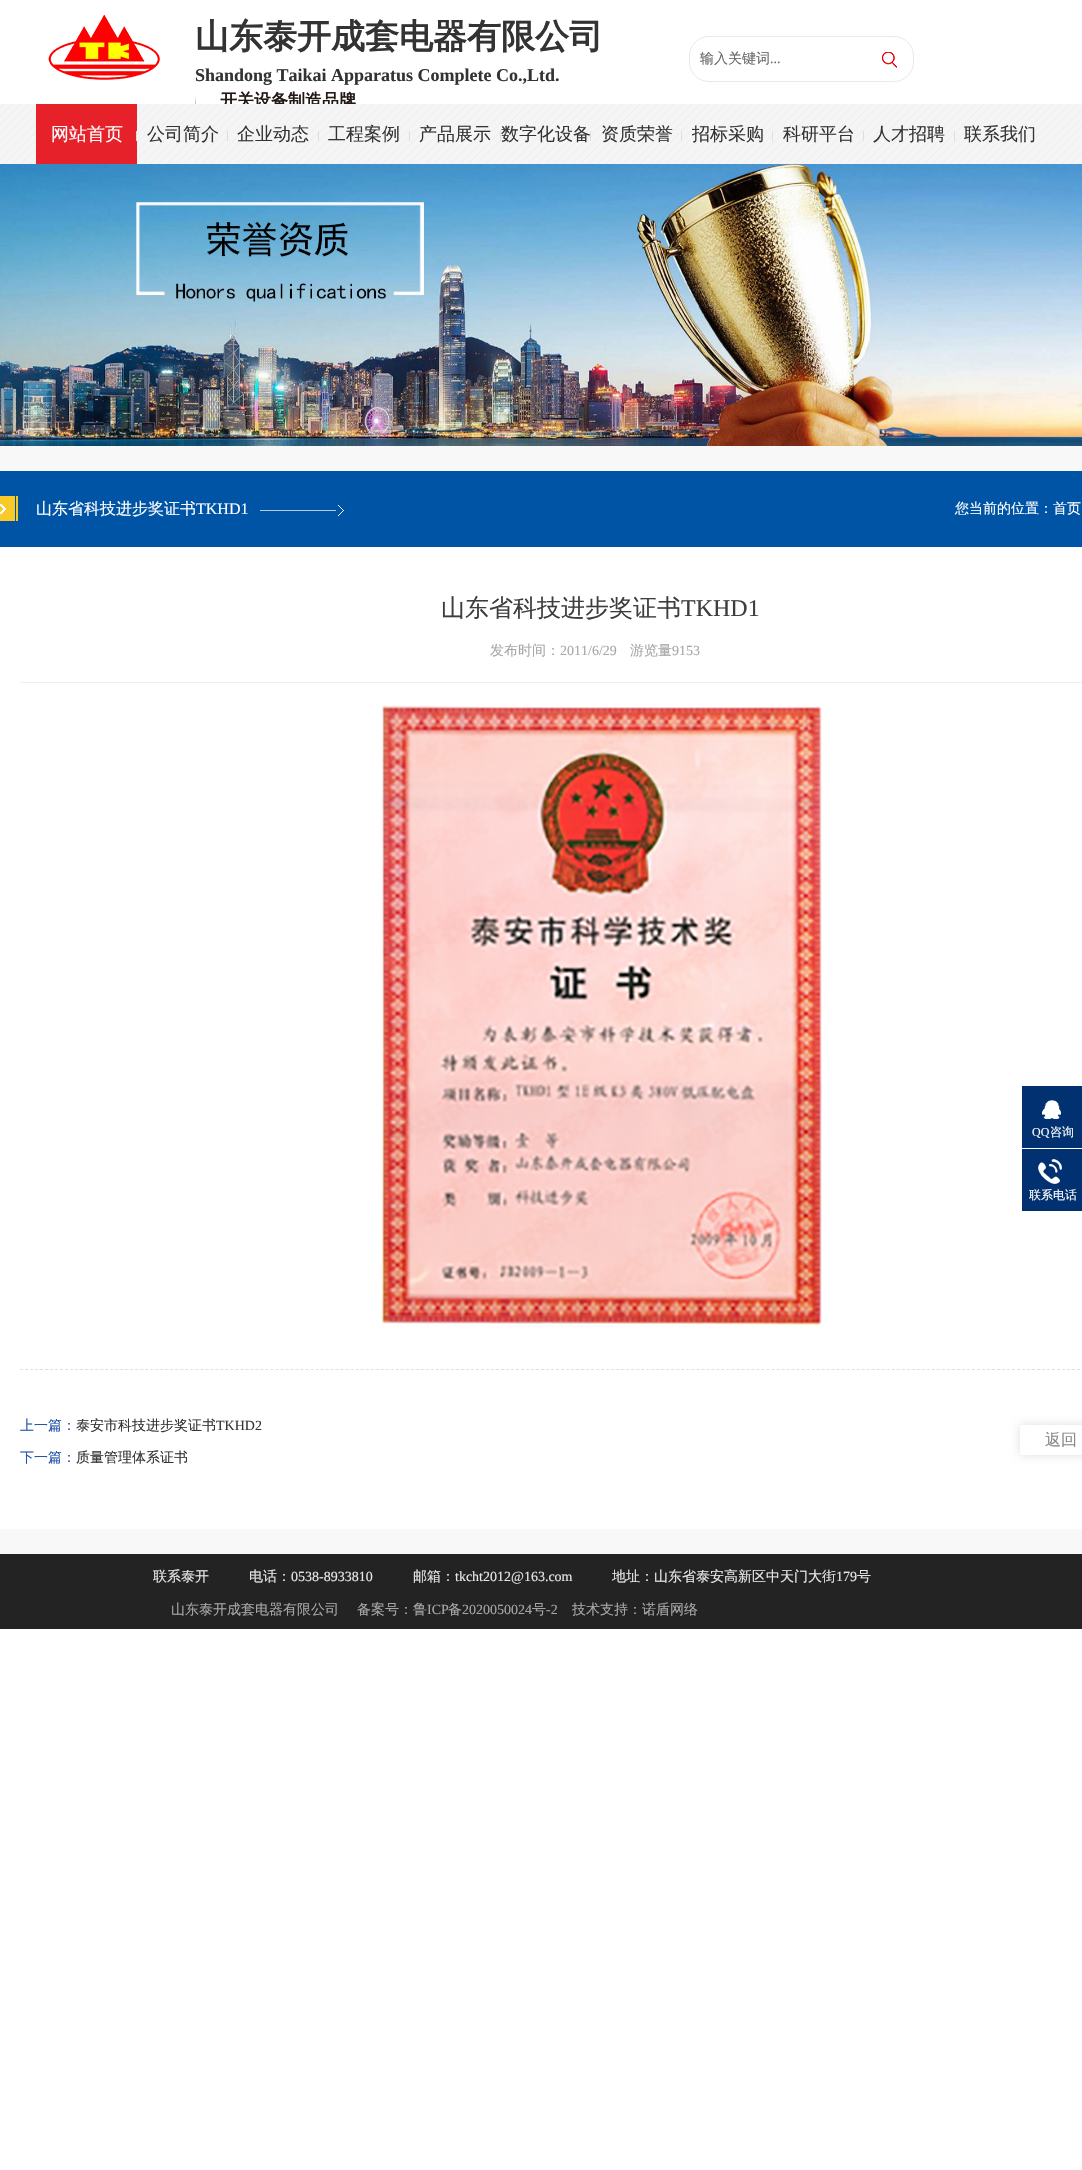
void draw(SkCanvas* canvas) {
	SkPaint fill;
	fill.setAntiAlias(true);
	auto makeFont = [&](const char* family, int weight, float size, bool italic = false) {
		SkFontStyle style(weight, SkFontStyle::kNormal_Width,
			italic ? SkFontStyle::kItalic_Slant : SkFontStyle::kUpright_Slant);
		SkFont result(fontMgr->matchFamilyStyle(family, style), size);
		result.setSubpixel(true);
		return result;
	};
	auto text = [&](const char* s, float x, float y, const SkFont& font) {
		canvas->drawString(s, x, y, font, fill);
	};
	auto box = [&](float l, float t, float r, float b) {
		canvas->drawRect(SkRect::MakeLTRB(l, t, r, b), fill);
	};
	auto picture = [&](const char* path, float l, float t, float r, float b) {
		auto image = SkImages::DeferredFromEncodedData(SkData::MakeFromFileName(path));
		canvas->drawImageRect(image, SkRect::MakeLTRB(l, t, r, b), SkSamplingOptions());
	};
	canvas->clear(0xFFFFFFFF);
	picture("image0.png", 48, 14, 160, 80);
	picture("image1.png", 195, 94, 196, 104);
	fill.setStyle(SkPaint::kStroke_Style);
	fill.setStrokeWidth(1);
	fill.setColor(0xFFE9E9E9);
	canvas->drawRoundRect(SkRect::MakeLTRB(689.5f, 36.5f, 913.5f, 81.5f), 19.5f, 19.5f, fill);
	picture("image2.png", 882, 52, 897, 68);
	picture("image4.png", 0, 164, 1082, 446);
	fill.setStyle(SkPaint::kFill_Style);
	fill.setColor(0xFFF8F8F8);
	box(0, 446, 1082, 1554);
	fill.setColor(0xFF0054A5);
	box(0, 471, 1082, 547);
	picture("image5.png", 0, 496, 18, 521);
	fill.setColor(0xFFB3CCE4);
	box(260, 510, 336, 511);
	picture("image6.png", 338, 505, 344, 516);
	fill.setColor(0xFFFFFFFF);
	box(0, 547, 1082, 1529);
	fill.setColor(0xFFF0F0F0);
	box(20, 682, 1082, 683);
	fill.setStyle(SkPaint::kStroke_Style);
	fill.setColor(0xFFE0E0E0);
	fill.setPathEffect(SkDashPathEffect::Make({{3, 2.01f}}, 0));
	canvas->drawPath(SkPathBuilder().moveTo(20, 1369.5f).lineTo(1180, 1369.5f).detach(), fill);
	fill.setPathEffect(nullptr);
	picture("image7.png", 380, 705, 825, 1327);
	canvas->save();
	canvas->clipPath(SkPathBuilder(SkPathFillType::kEvenOdd).moveTo(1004, 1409).lineTo(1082, 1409).lineTo(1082, 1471).lineTo(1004, 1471).close().moveTo(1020, 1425).lineTo(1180, 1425).lineTo(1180, 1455).lineTo(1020, 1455).close().detach(), true);
	fill.setStyle(SkPaint::kFill_Style);
	fill.setColor(0x210C0306);
	fill.setMaskFilter(SkMaskFilter::MakeBlur(kNormal_SkBlurStyle, 5));
	canvas->drawRect(SkRect::MakeLTRB(1020, 1425, 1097, 1455), fill);
	fill.setMaskFilter(nullptr);
	canvas->restore();
	fill.setColor(0xFF013171);
	box(1022, 1086, 1082, 1148);
	picture("image8.png", 1042, 1100, 1061, 1119);
	box(1022, 1149, 1082, 1211);
	picture("image9.png", 1038, 1159, 1062, 1184);
	fill.setColor(0xFF232324);
	box(0, 1554, 1082, 1629);
	auto font1 = makeFont("WenQuanYi Zen Hei", 700, 34);
	fill.setColor(0xFF333333);
	text("山东泰开成套电器有限公司", 195, 48, font1);
	auto font2 = makeFont("Liberation Serif", 700, 18);
	text("Shandong Taikai Apparatus Complete Co.,Ltd.", 195, 81, font2);
	auto font3 = makeFont("WenQuanYi Zen Hei", 700, 17);
	fill.setColor(0xFF231815);
	text("开关设备制造品牌", 220, 106, font3);
	auto font4 = makeFont("WenQuanYi Zen Hei", 500, 14);
	fill.setColor(0xFF666666);
	text("输入关键词", 700, 63, font4);
	auto font5 = makeFont("Liberation Serif", 400, 14);
	text("...", 770, 63, font5);
	picture("image3.png", 0, 104, 1082, 164);
	fill.setColor(0xFFE62129);
	box(36, 104, 137, 164);
	auto font6 = makeFont("WenQuanYi Zen Hei", 500, 18);
	fill.setColor(0xFFFFFFFF);
	text("网站首页", 51, 140, font6);
	fill.setColor(0xFFDEDEDE);
	box(136, 131, 137, 141);
	fill.setColor(0xFF333333);
	text("公司简介", 147, 140, font6);
	fill.setColor(0xFFDEDEDE);
	box(227, 131, 228, 141);
	fill.setColor(0xFF333333);
	text("企业动态", 237, 140, font6);
	fill.setColor(0xFFDEDEDE);
	box(318, 131, 319, 141);
	fill.setColor(0xFF333333);
	text("工程案例", 328, 140, font6);
	fill.setColor(0xFFDEDEDE);
	box(409, 131, 410, 141);
	fill.setColor(0xFF333333);
	text("产品展示", 419, 140, font6);
	fill.setColor(0xFFDEDEDE);
	box(500, 131, 501, 141);
	fill.setColor(0xFF333333);
	text("数字化设备", 501, 140, font6);
	fill.setColor(0xFFDEDEDE);
	box(590, 131, 591, 141);
	fill.setColor(0xFF333333);
	text("资质荣誉", 601, 140, font6);
	fill.setColor(0xFFDEDEDE);
	box(681, 131, 682, 141);
	fill.setColor(0xFF333333);
	text("招标采购", 692, 140, font6);
	fill.setColor(0xFFDEDEDE);
	box(772, 131, 773, 141);
	fill.setColor(0xFF333333);
	text("科研平台", 783, 140, font6);
	fill.setColor(0xFFDEDEDE);
	box(863, 131, 864, 141);
	fill.setColor(0xFF333333);
	text("人才招聘", 873, 140, font6);
	fill.setColor(0xFFDEDEDE);
	box(954, 131, 955, 141);
	fill.setColor(0xFF333333);
	text("联系我们", 964, 140, font6);
	auto font7 = makeFont("WenQuanYi Zen Hei", 500, 16);
	fill.setColor(0xFFFFFFFF);
	text("山东省科技进步奖证书", 36, 514, font7);
	auto font8 = makeFont("Liberation Serif", 400, 16);
	text("TKHD1", 196, 514, font8);
	text("您当前的位置：首页", 955, 513, font4);
	auto font9 = makeFont("WenQuanYi Zen Hei", 500, 24);
	fill.setColor(0xFF3D3D3D);
	text("山东省科技进步奖证书", 441, 616, font9);
	auto font10 = makeFont("Liberation Serif", 400, 24);
	text("TKHD1", 681, 616, font10);
	fill.setColor(0xFFA7A7A7);
	text("发布时间：", 490, 655, font4);
	text("2011/6/29", 560, 655, font5);
	text("游览量", 630, 655, font4);
	text("9153", 672, 655, font5);
	fill.setColor(0xFF2454AC);
	text("上一篇：", 20, 1430, font4);
	fill.setColor(0xFF333333);
	text("泰安市科技进步奖证书", 76, 1430, font4);
	text("TKHD2", 216, 1430, font5);
	fill.setColor(0xFF2454AC);
	text("下一篇：", 20, 1462, font4);
	fill.setColor(0xFF333333);
	text("质量管理体系证书", 76, 1462, font4);
	fill.setColor(0xFF888888);
	text("返回", 1045, 1445, font7);
	auto font11 = makeFont("Liberation Serif", 400, 12);
	fill.setColor(0xFFFFFFFF);
	text("QQ", 1032, 1136, font11);
	auto font12 = makeFont("WenQuanYi Zen Hei", 500, 12);
	text("咨询", 1050, 1136, font12);
	text("联系电话", 1029, 1199, font12);
	fill.setColor(0xFFE7E7E7);
	text("联系泰开", 153, 1581, font4);
	text("电话：", 249, 1581, font4);
	text("0538-8933810", 291, 1581, font5);
	text("邮箱：", 413, 1581, font4);
	text("tkcht2012@163.com", 455, 1581, font5);
	text("地址：山东省泰安高新区中天门大街", 612, 1581, font4);
	text("179", 836, 1581, font5);
	text("号", 857, 1581, font4);
	fill.setColor(0xFFA7A7A7);
	text("山东泰开成套电器有限公司", 171, 1614, font4);
	text("备案号：鲁", 357, 1614, font4);
	text("ICP", 427, 1614, font5);
	text("备", 448, 1614, font4);
	text("2020050024", 462, 1614, font5);
	text("号", 532, 1614, font4);
	text("-2", 546, 1614, font5);
	text("技术支持：诺盾网络", 572, 1614, font4);
}
